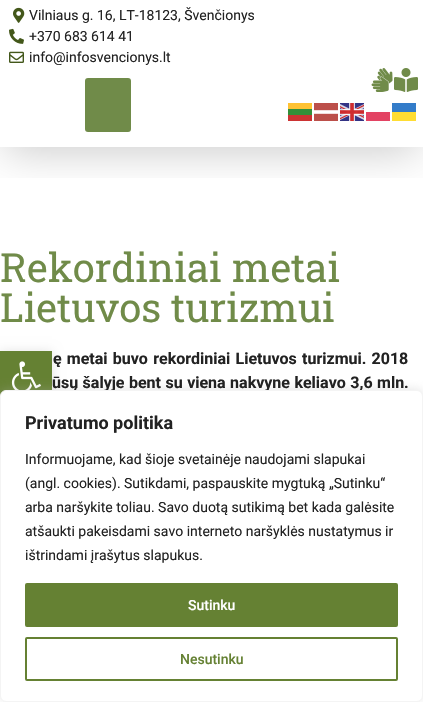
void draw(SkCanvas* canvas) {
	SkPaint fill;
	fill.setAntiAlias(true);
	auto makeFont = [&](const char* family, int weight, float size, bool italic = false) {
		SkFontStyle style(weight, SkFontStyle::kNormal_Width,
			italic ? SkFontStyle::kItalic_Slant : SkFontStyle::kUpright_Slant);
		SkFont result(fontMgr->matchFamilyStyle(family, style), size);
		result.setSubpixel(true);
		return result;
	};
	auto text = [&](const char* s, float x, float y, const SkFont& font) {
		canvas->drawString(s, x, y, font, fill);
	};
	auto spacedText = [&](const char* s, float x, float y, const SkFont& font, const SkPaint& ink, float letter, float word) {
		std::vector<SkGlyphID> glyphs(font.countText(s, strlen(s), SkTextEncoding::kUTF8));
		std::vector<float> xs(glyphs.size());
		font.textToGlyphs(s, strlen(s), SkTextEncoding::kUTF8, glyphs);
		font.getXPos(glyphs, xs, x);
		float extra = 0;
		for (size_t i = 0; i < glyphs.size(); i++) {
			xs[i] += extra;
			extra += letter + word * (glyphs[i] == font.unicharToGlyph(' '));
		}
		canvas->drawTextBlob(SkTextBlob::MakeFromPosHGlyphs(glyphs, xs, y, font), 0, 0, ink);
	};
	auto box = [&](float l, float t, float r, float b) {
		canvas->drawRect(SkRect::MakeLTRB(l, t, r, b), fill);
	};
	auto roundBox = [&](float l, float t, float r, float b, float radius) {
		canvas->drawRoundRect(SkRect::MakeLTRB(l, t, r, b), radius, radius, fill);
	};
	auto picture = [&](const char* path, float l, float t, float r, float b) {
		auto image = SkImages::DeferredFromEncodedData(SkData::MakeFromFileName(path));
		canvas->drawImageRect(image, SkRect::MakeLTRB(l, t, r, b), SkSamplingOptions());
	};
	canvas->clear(0xFFFFFFFF);
	canvas->save();
	canvas->clipRect(SkRect::MakeLTRB(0, 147, 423, 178));
	fill.setColor(0x33000000);
	fill.setMaskFilter(SkMaskFilter::MakeBlur(kNormal_SkBlurStyle, 20));
	canvas->drawRect(SkRect::MakeLTRB(5, 15, 418, 152), fill);
	fill.setMaskFilter(nullptr);
	canvas->restore();
	picture("image0.png", 13, 7, 25, 23);
	picture("image1.png", 9, 28, 24, 44);
	picture("image2.png", 9, 51, 24, 63);
	fill.setColor(0xFF708B49);
	roundBox(85, 78, 131, 132, 3);
	picture("image3.png", 371, 68, 393, 92);
	picture("image4.png", 394, 68, 418, 92);
	fill.setColor(0xFFFFC233);
	box(288, 103, 312, 109);
	picture("image5.png", 314, 103, 338, 121);
	picture("image6.png", 340, 103, 364, 121);
	fill.setColor(0xFF337CC9);
	box(392, 103, 416, 112);
	fill.setColor(0xFF338F39);
	box(288, 109, 312, 115);
	fill.setColor(0xFFE34363);
	box(366, 112, 390, 121);
	fill.setColor(0xFFFFDD33);
	box(392, 112, 416, 121);
	fill.setColor(0xFFCC3333);
	box(288, 115, 312, 121);
	fill.setColor(0x1A000000);
	fill.setMaskFilter(SkMaskFilter::MakeBlur(kNormal_SkBlurStyle, 5));
	canvas->drawRect(SkRect::MakeLTRB(0, 351, 52, 403), fill);
	fill.setMaskFilter(nullptr);
	fill.setColor(0xFF658133);
	box(0, 351, 52, 396);
	picture("image7.png", 11, 361, 41, 390);
	fill.setColor(0x4DACABAB);
	fill.setMaskFilter(SkMaskFilter::MakeBlur(kNormal_SkBlurStyle, 5));
	canvas->drawRoundRect(SkRect::MakeLTRB(0, 389, 423, 701), 6, 6, fill);
	fill.setMaskFilter(nullptr);
	auto font1 = makeFont("Roboto", 400, 14);
	fill.setColor(0xFF222222);
	text("Vilniaus g. 16, LT-18123, Švenčionys", 29, 20, font1);
	text("+370 683 614 41", 29, 41, font1);
	text("info@infosvencionys.lt", 29, 62, font1);
	auto font2 = makeFont("Roboto Slab", 400, 40);
	fill.setColor(0xFF708B49);
	text("Rekordiniai metai", 0, 282, font2);
	text("Lietuvos turizmui", 0, 322, font2);
	auto font3 = makeFont("Roboto", 700, 16);
	fill.setColor(0xFF222222);
	spacedText("ę metai buvo rekordiniai Lietuvos turizmui. 2018", 53, 364, font3, fill, 0, 1.25f);
	spacedText("ūsų šalyje bent su viena nakvyne keliavo 3,6 mln.", 52, 388, font3, fill, 0, 0.5f);
	fill.setColor(0xFFFFFFFF);
	canvas->drawRoundRect(SkRect::MakeLTRB(0.5f, 390.5f, 422.5f, 701.5f), 5.5f, 5.5f, fill);
	fill.setStyle(SkPaint::kStroke_Style);
	fill.setStrokeWidth(1);
	fill.setColor(0xFFF4F4F4);
	canvas->drawRoundRect(SkRect::MakeLTRB(0.5f, 390.5f, 422.5f, 701.5f), 5.5f, 5.5f, fill);
	auto font4 = makeFont("Roboto", 700, 18);
	fill.setStyle(SkPaint::kFill_Style);
	fill.setColor(0xFF222222);
	text("Privatumo politika", 25, 429, font4);
	text("Informuojame, kad šioje svetainėje naudojami slapukai", 25, 464, font1);
	text("(angl. cookies). Sutikdami, paspauskite mygtuką „Sutinku“", 25, 488, font1);
	text("arba naršykite toliau. Savo duotą sutikimą bet kada galėsite", 25, 512, font1);
	text("atšaukti pakeisdami savo interneto naršyklės nustatymus ir", 25, 536, font1);
	text("ištrindami įrašytus slapukus.", 25, 560, font1);
	fill.setColor(0xFF658133);
	canvas->drawRoundRect(SkRect::MakeLTRB(26, 584, 397, 626), 1, 1, fill);
	fill.setStyle(SkPaint::kStroke_Style);
	fill.setStrokeWidth(2);
	canvas->drawRoundRect(SkRect::MakeLTRB(26, 584, 397, 626), 1, 1, fill);
	auto font5 = makeFont("Roboto", 500, 14);
	fill.setStyle(SkPaint::kFill_Style);
	fill.setColor(0xFFFFFFFF);
	text("Sutinku", 188, 610, font5);
	fill.setStyle(SkPaint::kStroke_Style);
	fill.setColor(0xFF658133);
	canvas->drawRoundRect(SkRect::MakeLTRB(26, 638, 397, 680), 1, 1, fill);
	fill.setStyle(SkPaint::kFill_Style);
	text("Nesutinku", 180, 664, font5);
}
